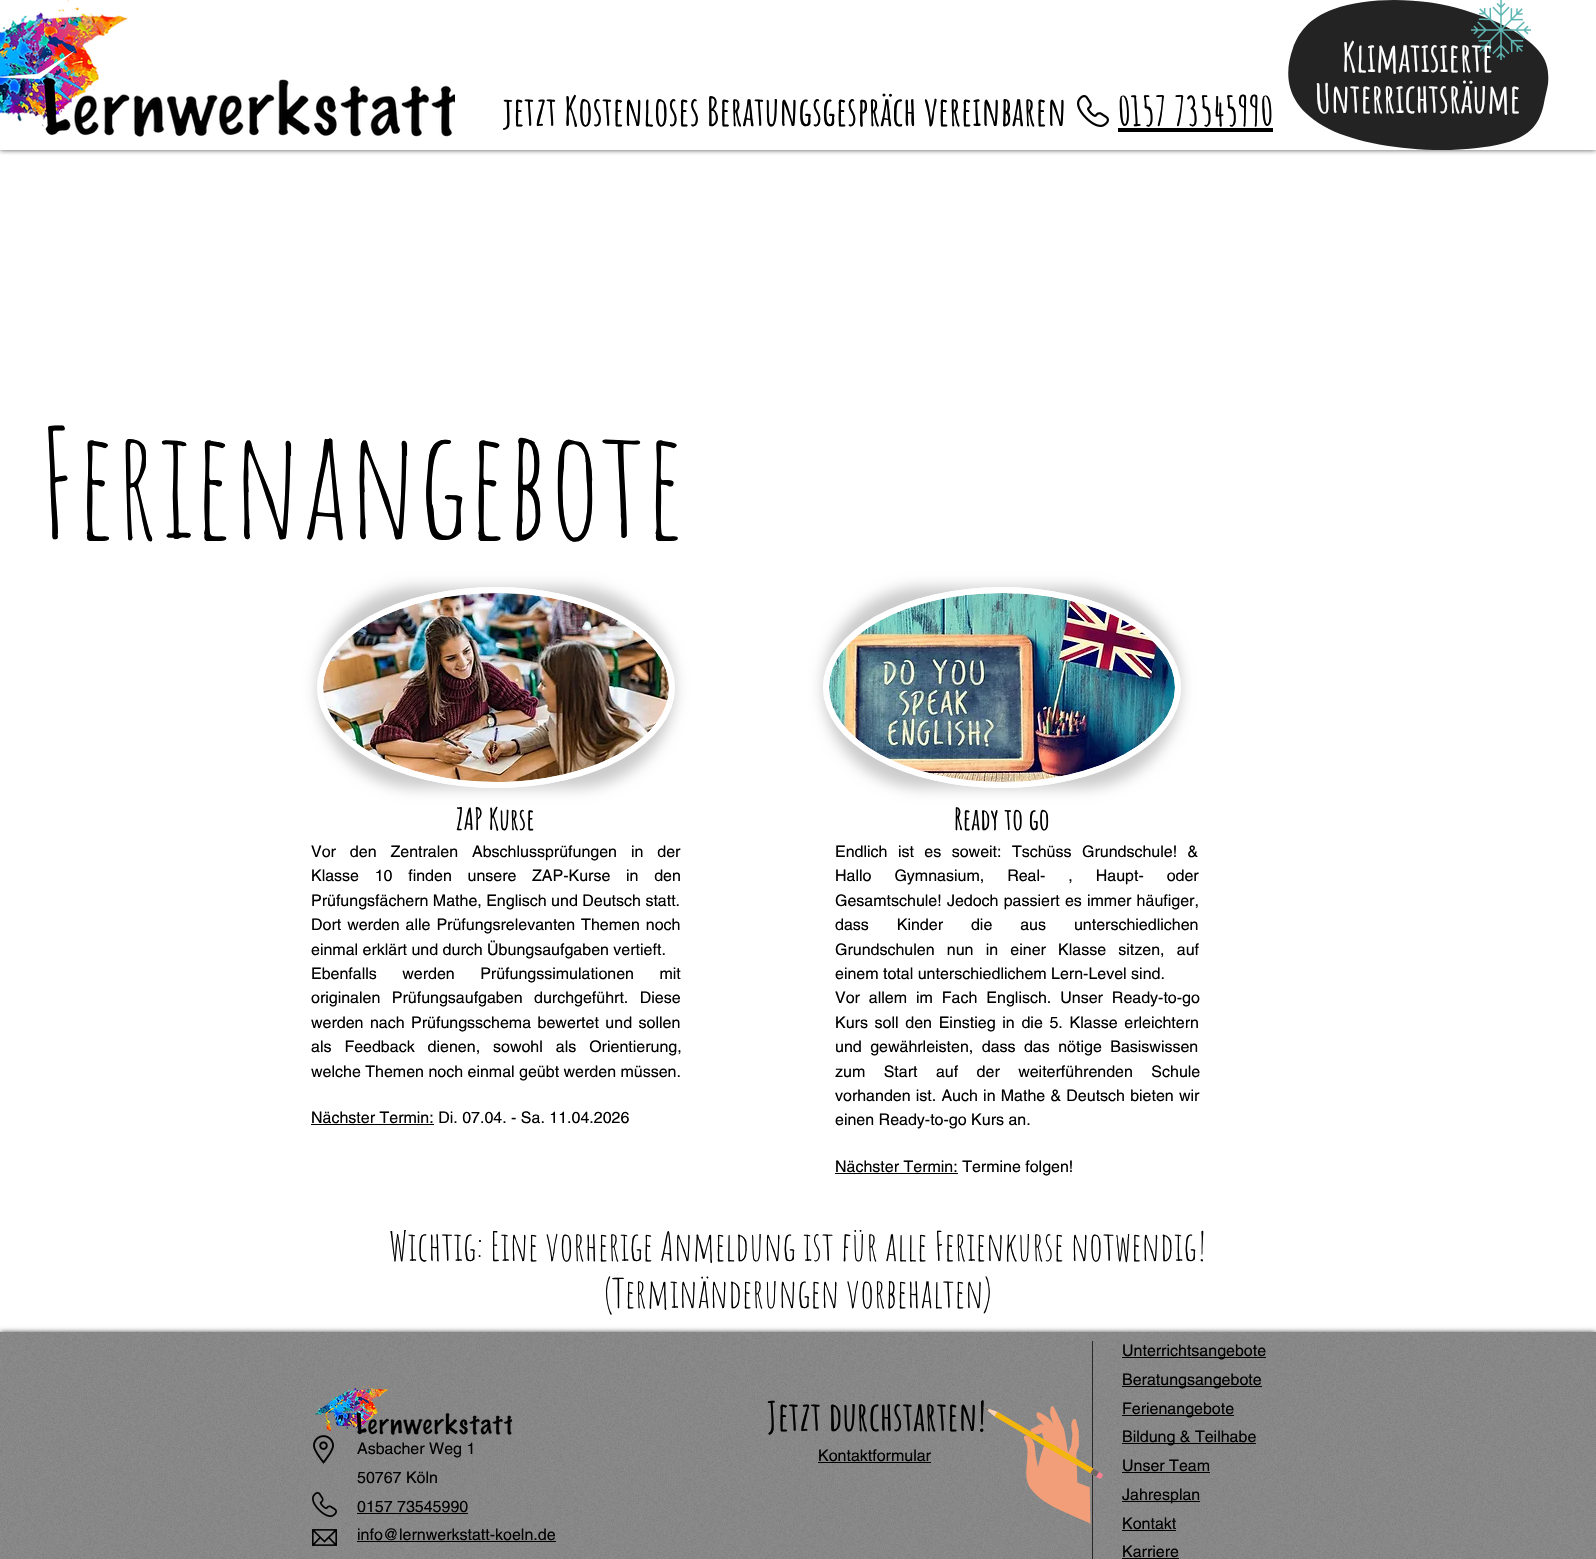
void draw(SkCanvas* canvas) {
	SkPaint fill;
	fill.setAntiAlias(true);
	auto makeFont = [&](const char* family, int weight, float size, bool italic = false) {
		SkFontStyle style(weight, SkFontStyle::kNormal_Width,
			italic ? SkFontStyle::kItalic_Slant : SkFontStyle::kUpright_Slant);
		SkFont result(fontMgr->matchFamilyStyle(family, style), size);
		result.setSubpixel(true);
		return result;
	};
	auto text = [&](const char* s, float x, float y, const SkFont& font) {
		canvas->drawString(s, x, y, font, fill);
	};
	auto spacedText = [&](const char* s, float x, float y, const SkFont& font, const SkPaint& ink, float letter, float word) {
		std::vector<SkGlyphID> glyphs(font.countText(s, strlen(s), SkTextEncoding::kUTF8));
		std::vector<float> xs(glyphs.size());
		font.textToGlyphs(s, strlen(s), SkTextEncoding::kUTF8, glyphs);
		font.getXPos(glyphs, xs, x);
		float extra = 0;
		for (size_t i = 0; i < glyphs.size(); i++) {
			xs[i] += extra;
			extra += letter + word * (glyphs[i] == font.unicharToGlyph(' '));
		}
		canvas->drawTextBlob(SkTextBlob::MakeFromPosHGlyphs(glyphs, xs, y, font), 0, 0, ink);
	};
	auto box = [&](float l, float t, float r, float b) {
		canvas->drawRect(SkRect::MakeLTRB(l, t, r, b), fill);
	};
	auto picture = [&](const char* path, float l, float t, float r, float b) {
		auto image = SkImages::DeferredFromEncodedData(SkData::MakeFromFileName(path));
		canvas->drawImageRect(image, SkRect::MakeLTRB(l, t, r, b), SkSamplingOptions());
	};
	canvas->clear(0xFFFFFFFF);
	canvas->save();
	canvas->clipRect(SkRect::MakeLTRB(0, 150, 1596, 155));
	fill.setColor(0xB3000000);
	fill.setMaskFilter(SkMaskFilter::MakeBlur(kNormal_SkBlurStyle, 2.5f));
	canvas->drawRect(SkRect::MakeLTRB(0, 0, 1596, 150), fill);
	fill.setMaskFilter(nullptr);
	canvas->restore();
	picture("image0.png", 0, 0, 455, 137);
	fill.setColor(0xFF242323);
	canvas->drawPath(SkPathBuilder().moveTo(1548, 84).cubicTo(1549, 73, 1548, 61, 1538, 50).cubicTo(1524, 34, 1497, 20, 1464, 10).cubicTo(1426, -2, 1370, -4, 1334, 9).cubicTo(1308, 18, 1298, 34, 1293, 48).cubicTo(1283, 76, 1286, 107, 1329, 129).cubicTo(1369, 149, 1451, 157, 1505, 143).cubicTo(1536, 135, 1541, 117, 1544, 103).cubicTo(1545, 97, 1547, 90, 1548, 84).close().detach(), fill);
	picture("image1.png", 1471, 0, 1531, 60);
	fill.setColor(0xFF000000);
	box(1118, 128, 1273, 132);
	picture("image2.png", 1077, 95, 1109, 127);
	fill.setColor(0x33000000);
	fill.setMaskFilter(SkMaskFilter::MakeBlur(kNormal_SkBlurStyle, 7));
	canvas->drawRoundRect(SkRect::MakeLTRB(317, 587, 675, 788), 100.5f, 100.5f, fill);
	fill.setMaskFilter(nullptr);
	fill.setColor(0xFFFFFFFF);
	canvas->drawOval(SkRect::MakeLTRB(317, 587, 675, 788), fill);
	fill.setStyle(SkPaint::kStroke_Style);
	fill.setStrokeWidth(6);
	canvas->drawPath(SkPathBuilder().moveTo(496, 590).cubicTo(593, 590, 672, 633.5f, 672, 687.5f).cubicTo(672, 741.5f, 593, 785, 496, 785).cubicTo(399, 785, 320, 741.5f, 320, 687.5f).cubicTo(320, 633.5f, 399, 590, 496, 590).close().detach(), fill);
	picture("image3.png", 323, 593, 669, 782);
	fill.setStyle(SkPaint::kFill_Style);
	fill.setColor(0x33000000);
	fill.setMaskFilter(SkMaskFilter::MakeBlur(kNormal_SkBlurStyle, 7));
	canvas->drawRoundRect(SkRect::MakeLTRB(823, 587, 1181, 788), 100.5f, 100.5f, fill);
	fill.setMaskFilter(nullptr);
	fill.setColor(0xFFFFFFFF);
	canvas->drawOval(SkRect::MakeLTRB(823, 587, 1181, 788), fill);
	fill.setStyle(SkPaint::kStroke_Style);
	canvas->drawPath(SkPathBuilder().moveTo(1002, 590).cubicTo(1099, 590, 1178, 633.5f, 1178, 687.5f).cubicTo(1178, 741.5f, 1099, 785, 1002, 785).cubicTo(905, 785, 826, 741.5f, 826, 687.5f).cubicTo(826, 633.5f, 905, 590, 1002, 590).close().detach(), fill);
	picture("image4.png", 829, 593, 1175, 782);
	fill.setStyle(SkPaint::kFill_Style);
	fill.setColor(0xFF000000);
	box(311, 1124, 434, 1125);
	box(835, 1173, 958, 1174);
	fill.setColor(0xB3000000);
	fill.setMaskFilter(SkMaskFilter::MakeBlur(kNormal_SkBlurStyle, 2.5f));
	canvas->drawRect(SkRect::MakeLTRB(0, 1332, 1596, 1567), fill);
	fill.setMaskFilter(nullptr);
	fill.setColor(0xFF8A8A8A);
	box(0, 1332, 1596, 1559);
	picture("image5.png", 0, 1332, 1596, 1559);
	picture("image6.png", 314, 1383, 512, 1435);
	fill.setColor(0xFF282626);
	box(1092, 1341, 1093, 1559);
	fill.setColor(0xFF000000);
	box(1122, 1357, 1266, 1358);
	box(1122, 1386, 1262, 1387);
	box(1122, 1415, 1234, 1416);
	box(1122, 1443, 1256, 1444);
	box(1122, 1472, 1210, 1473);
	box(1122, 1501, 1200, 1502);
	box(1122, 1530, 1176, 1531);
	box(1122, 1558, 1179, 1559);
	picture("image7.png", 313, 1435, 334, 1464);
	box(357, 1513, 468, 1514);
	box(357, 1541, 556, 1542);
	box(818, 1462, 931, 1463);
	picture("image9.png", 312, 1492, 337, 1517);
	picture("image10.png", 312, 1529, 337, 1546);
	auto font1 = makeFont("Amatic SC", 700, 40);
	text("jetzt Kostenloses Beratungsgespräch vereinbaren", 503, 126, font1);
	text("0157 73545990", 1118, 126, font1);
	fill.setColor(0xFFFFFFFF);
	text("Klimatisierte", 1342, 72, font1);
	text("Unterrichtsräume", 1315, 113, font1);
	auto font2 = makeFont("Amatic SC", 400, 150);
	fill.setColor(0xFF000000);
	text("Ferienangebote", 38, 539, font2);
	auto font3 = makeFont("Amatic SC", 700, 30);
	text("ZAP Kurse", 456, 830, font3);
	text("Ready to go", 954, 830, font3);
	auto font4 = makeFont("helvetica", 400, 16);
	spacedText("Vor den Zentralen Abschlussprüfungen in der", 311, 857, font4, fill, 0, 9.5f);
	spacedText("Klasse 10 finden unsere ZAP-Kurse in den", 311, 881, font4, fill, 0, 11.25f);
	text("Prüfungsfächern Mathe, Englisch und Deutsch statt.", 311, 906, font4);
	spacedText("Dort werden alle Prüfungsrelevanten Themen noch", 311, 930, font4, fill, 0, 1.5f);
	text("einmal erklärt und durch Übungsaufgaben vertieft.", 311, 955, font4);
	spacedText("Ebenfalls werden Prüfungssimulationen mit", 311, 979, font4, fill, 0, 21);
	spacedText("originalen Prüfungsaufgaben durchgeführt. Diese", 311, 1003, font4, fill, 0, 7);
	spacedText("werden nach Prüfungsschema bewertet und sollen", 311, 1028, font4, fill, 0, 2);
	spacedText("als Feedback dienen, sowohl als Orientierung,", 311, 1052, font4, fill, 0, 8.5f);
	text("welche Themen noch einmal geübt werden müssen.", 311, 1077, font4);
	text("Nächster Termin: Di. 07.04. - Sa. 11.04.2026", 311, 1123, font4);
	spacedText("Endlich ist es soweit: Tschüss Grundschule! &", 835, 857, font4, fill, 0, 6);
	spacedText("Hallo Gymnasium, Real- , Haupt- oder", 835, 881, font4, fill, 0, 18.5f);
	spacedText("Gesamtschule! Jedoch passiert es immer häufiger,", 835, 906, font4, fill, 0, 0.75f);
	spacedText("dass Kinder die aus unterschiedlichen", 835, 930, font4, fill, 0, 23.5f);
	spacedText("Grundschulen nun in einer Klasse sitzen, auf", 835, 955, font4, fill, 0, 7.75f);
	text("einem total unterschiedlichem Lern-Level sind.", 835, 979, font4);
	spacedText("Vor allem im Fach Englisch. Unser Ready-to-go", 835, 1003, font4, fill, 0, 4.5f);
	spacedText("Kurs soll den Einstieg in die 5. Klasse erleichtern", 835, 1028, font4, fill, 0, 2.25f);
	spacedText("und gewährleisten, dass das nötige Basiswissen", 835, 1052, font4, fill, 0, 4);
	spacedText("zum Start auf der weiterführenden Schule", 835, 1077, font4, fill, 0, 14);
	spacedText("vorhanden ist. Auch in Mathe & Deutsch bieten wir", 835, 1101, font4, fill, 0, 0.75f);
	text("einen Ready-to-go Kurs an.", 835, 1125, font4);
	text("Nächster Termin: Termine folgen!", 835, 1172, font4);
	auto font5 = makeFont("Amatic SC", 400, 40);
	text("Wichtig: Eine vorherige Anmeldung ist für alle Ferienkurse notwendig!", 389, 1261, font5);
	text("(Terminänderungen vorbehalten)", 604, 1308, font5);
	text("Jetzt durchstarten!", 767, 1431, font1);
	text("Unterrichtsangebote", 1122, 1356, font4);
	text("Beratungsangebote", 1122, 1385, font4);
	text("Ferienangebote", 1122, 1414, font4);
	text("Bildung & Teilhabe", 1122, 1442, font4);
	text("Unser Team", 1122, 1471, font4);
	text("Jahresplan", 1122, 1500, font4);
	text("Kontakt", 1122, 1529, font4);
	text("Karriere", 1122, 1557, font4);
	text("Asbacher Weg 1", 357, 1454, font4);
	text("50767 Köln", 357, 1483, font4);
	text("0157 73545990", 357, 1512, font4);
	text("info@lernwerkstatt-koeln.de", 357, 1540, font4);
	text("Kontaktformular", 818, 1461, font4);
	picture("image8.png", 983, 1406, 1103, 1524);
}
